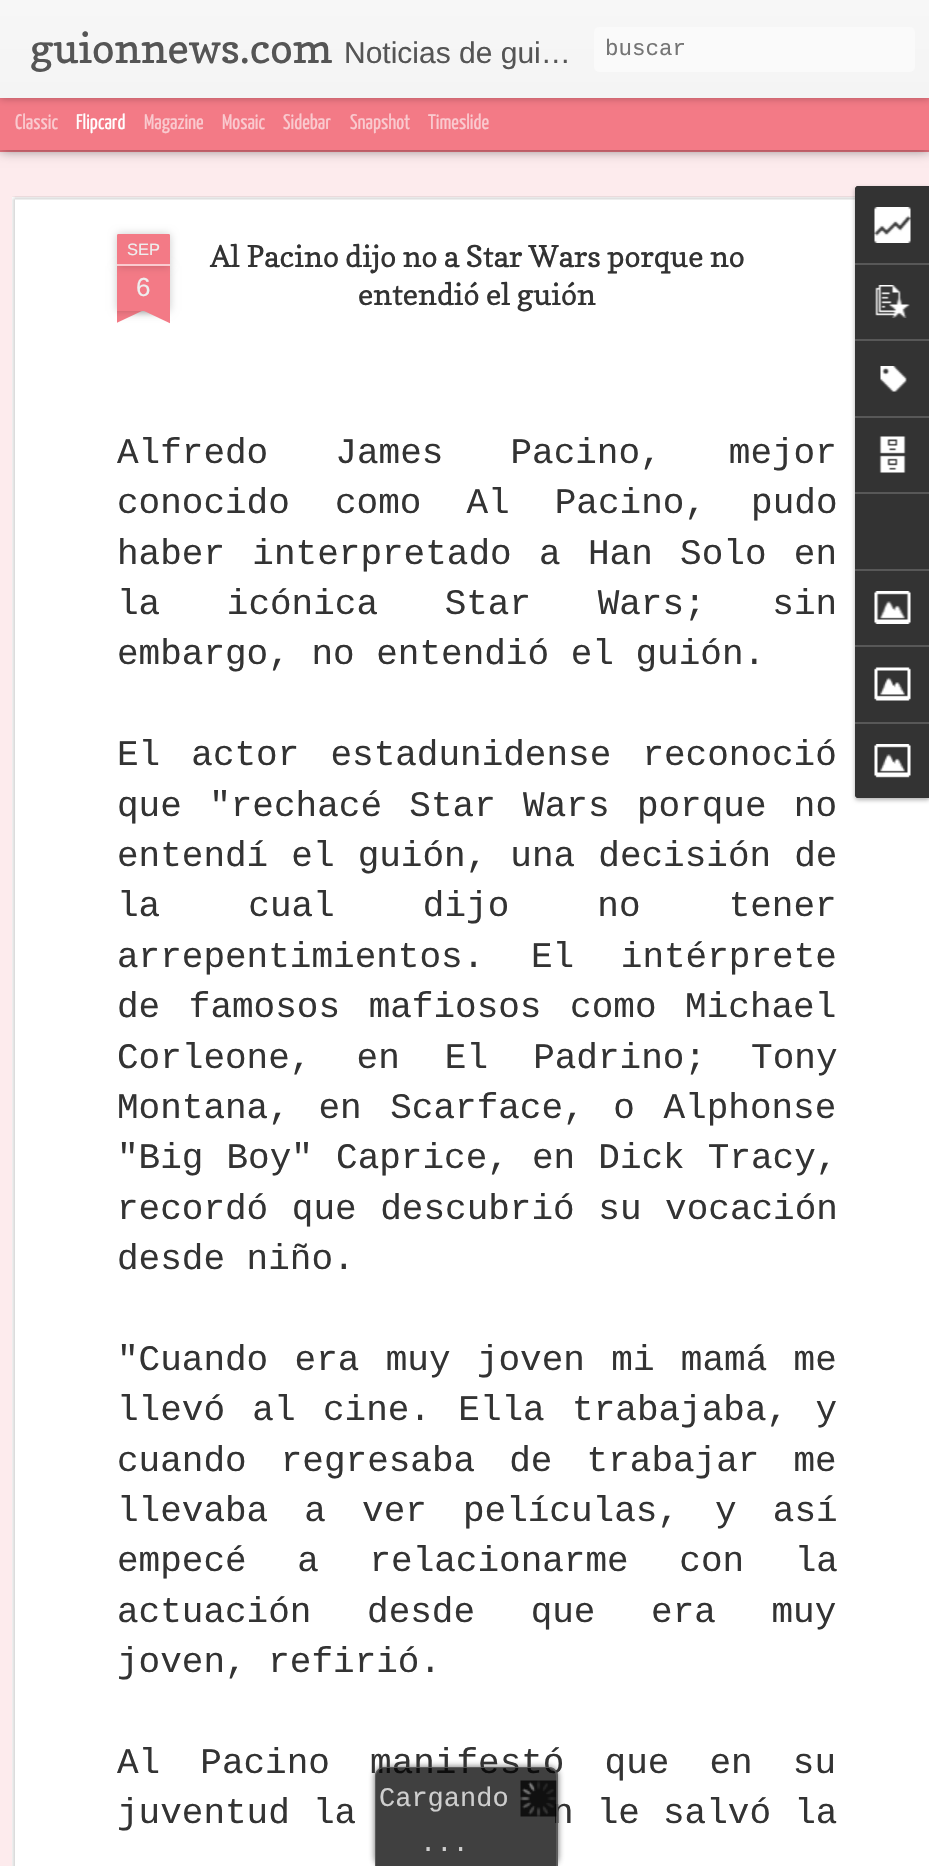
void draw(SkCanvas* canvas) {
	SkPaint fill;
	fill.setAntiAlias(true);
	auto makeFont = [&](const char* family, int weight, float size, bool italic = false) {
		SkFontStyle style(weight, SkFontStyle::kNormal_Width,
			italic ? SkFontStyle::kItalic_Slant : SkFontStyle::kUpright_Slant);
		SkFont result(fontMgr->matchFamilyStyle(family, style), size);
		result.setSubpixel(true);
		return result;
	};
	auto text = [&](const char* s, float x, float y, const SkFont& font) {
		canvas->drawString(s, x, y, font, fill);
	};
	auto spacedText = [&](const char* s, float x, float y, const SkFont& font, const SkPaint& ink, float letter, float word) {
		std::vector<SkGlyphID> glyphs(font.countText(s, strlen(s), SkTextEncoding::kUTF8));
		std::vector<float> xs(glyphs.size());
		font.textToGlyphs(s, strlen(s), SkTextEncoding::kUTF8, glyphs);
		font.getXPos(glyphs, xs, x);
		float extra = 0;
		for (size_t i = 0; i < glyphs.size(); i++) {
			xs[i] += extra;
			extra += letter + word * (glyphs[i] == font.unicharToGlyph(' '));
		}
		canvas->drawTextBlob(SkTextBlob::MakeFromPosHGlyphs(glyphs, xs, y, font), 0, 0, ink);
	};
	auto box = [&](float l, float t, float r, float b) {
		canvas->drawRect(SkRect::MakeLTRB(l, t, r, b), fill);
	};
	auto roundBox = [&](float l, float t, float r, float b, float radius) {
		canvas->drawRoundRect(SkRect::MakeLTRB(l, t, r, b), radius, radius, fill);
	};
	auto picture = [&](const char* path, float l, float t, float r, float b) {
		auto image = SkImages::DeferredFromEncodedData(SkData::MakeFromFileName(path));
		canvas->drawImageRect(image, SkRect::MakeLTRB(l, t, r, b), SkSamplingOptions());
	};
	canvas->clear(0xFFF37A86);
	fill.setColor(0xFFFDEBED);
	box(0, 152, 929, 1866);
	fill.setColor(0x80000000);
	fill.setMaskFilter(SkMaskFilter::MakeBlur(kNormal_SkBlurStyle, 6));
	canvas->drawRect(SkRect::MakeLTRB(0, 98, 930, 150), fill);
	fill.setMaskFilter(nullptr);
	fill.setColor(0xFFF37A86);
	box(0, 98, 929, 150);
	fill.setColor(0x4D000000);
	fill.setMaskFilter(SkMaskFilter::MakeBlur(kNormal_SkBlurStyle, 4));
	canvas->drawRect(SkRect::MakeLTRB(0, 0, 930, 98), fill);
	fill.setMaskFilter(nullptr);
	{
		const SkColor colors[] = {0xFFF7F7F7, 0xFFF4F4F4};
		const float stops[] = {0, 1};
		const SkPoint ends[] = {{0, 0}, {0, 98}};
		fill.setShader(SkGradientShader::MakeLinear(ends, colors, stops, 2, SkTileMode::kClamp));
		fill.setAlpha(255);
	}
	box(0, 0, 929, 98);
	fill.setShader(nullptr);
	fill.setColor(0xFFFAFAFA);
	roundBox(594, 27, 915, 72, 5);
	fill.setColor(0xFFFFFFFF);
	box(12, 197, 929, 1866);
	picture("image0.png", 12, 196, 855, 1866);
	fill.setColor(0x33000000);
	fill.setMaskFilter(SkMaskFilter::MakeBlur(kNormal_SkBlurStyle, 4));
	canvas->drawRect(SkRect::MakeLTRB(117, 266, 170, 311), fill);
	fill.setMaskFilter(nullptr);
	fill.setColor(0xFFF37A86);
	box(117, 266, 170, 311);
	fill.setColor(0x33000000);
	fill.setMaskFilter(SkMaskFilter::MakeBlur(kNormal_SkBlurStyle, 4));
	canvas->drawRoundRect(SkRect::MakeLTRB(117, 234, 170, 266), 1.5f, 1.5f, fill);
	fill.setMaskFilter(nullptr);
	fill.setColor(0xFFF37A86);
	canvas->drawPath(SkPathBuilder().moveTo(118.5f, 234).lineTo(168.5f, 234).cubicTo(169.5f, 234, 170, 234.5f, 170, 235.5f).lineTo(170, 266).lineTo(117, 266).lineTo(117, 235.5f).cubicTo(117, 234.5f, 117.5f, 234, 118.5f, 234).close().detach(), fill);
	fill.setColor(0xFFFACACF);
	box(117, 264, 170, 266);
	canvas->save();
	canvas->clipRect(SkRect::MakeLTRB(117, 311, 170, 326));
	fill.setColor(0x33000000);
	fill.setMaskFilter(SkMaskFilter::MakeBlur(kNormal_SkBlurStyle, 4));
	canvas->drawRect(SkRect::MakeLTRB(104, 296, 179, 311), fill);
	fill.setMaskFilter(nullptr);
	canvas->restore();
	canvas->save();
	canvas->clipRect(SkRect::MakeLTRB(117, 311, 170, 326));
	fill.setColor(0xFFF37A86);
	canvas->drawPath(SkPathBuilder().moveTo(104, 312).lineTo(172, 280).lineTo(178, 294).lineTo(110, 326).close().detach(), fill);
	canvas->restore();
	canvas->save();
	canvas->clipRect(SkRect::MakeLTRB(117, 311, 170, 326));
	fill.setColor(0x33000000);
	fill.setMaskFilter(SkMaskFilter::MakeBlur(kNormal_SkBlurStyle, 4));
	canvas->drawRect(SkRect::MakeLTRB(108, 296, 183, 311), fill);
	fill.setMaskFilter(nullptr);
	canvas->restore();
	canvas->save();
	canvas->clipRect(SkRect::MakeLTRB(117, 311, 170, 326));
	fill.setColor(0xFFF37A86);
	canvas->drawPath(SkPathBuilder().moveTo(115, 280).lineTo(183, 312).lineTo(176, 326).lineTo(108, 294).close().detach(), fill);
	canvas->restore();
	fill.setColor(0x4D000000);
	fill.setMaskFilter(SkMaskFilter::MakeBlur(kNormal_SkBlurStyle, 2));
	canvas->drawRoundRect(SkRect::MakeLTRB(855, 188, 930, 800), 3, 3, fill);
	fill.setMaskFilter(nullptr);
	fill.setColor(0xFF333333);
	canvas->drawPath(SkPathBuilder().moveTo(858, 186).lineTo(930, 186).lineTo(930, 798).lineTo(858, 798).cubicTo(856.5f, 798, 855, 796.5f, 855, 795).lineTo(855, 189).cubicTo(855, 187.5f, 856.5f, 186, 858, 186).close().detach(), fill);
	canvas->drawPath(SkPathBuilder().moveTo(858, 186).lineTo(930, 186).lineTo(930, 263).lineTo(855, 263).lineTo(855, 189).cubicTo(855, 187.5f, 856.5f, 186, 858, 186).close().detach(), fill);
	picture("image1.png", 874, 207, 911, 243);
	fill.setColor(0xFF585858);
	box(855, 263, 929, 265);
	picture("image2.png", 875, 285, 910, 318);
	box(855, 339, 929, 341);
	picture("image3.png", 880, 366, 907, 392);
	box(855, 416, 929, 418);
	picture("image4.png", 879, 436, 906, 473);
	box(855, 492, 929, 494);
	box(855, 569, 929, 571);
	picture("image5.png", 874, 591, 911, 624);
	box(855, 645, 929, 647);
	picture("image6.png", 874, 667, 911, 701);
	fill.setColor(0xFF333333);
	canvas->drawPath(SkPathBuilder().moveTo(855, 722).lineTo(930, 722).lineTo(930, 798).lineTo(858, 798).cubicTo(856.5f, 798, 855, 796.5f, 855, 795).close().detach(), fill);
	fill.setColor(0xFF585858);
	box(855, 722, 929, 724);
	picture("image7.png", 874, 744, 911, 778);
	canvas->save();
	canvas->clipPath(SkPathBuilder(SkPathFillType::kEvenOdd).moveTo(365, 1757).lineTo(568, 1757).lineTo(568, 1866).lineTo(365, 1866).close().moveTo(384, 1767).lineTo(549, 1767).cubicTo(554, 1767, 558, 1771, 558, 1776).lineTo(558, 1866).lineTo(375, 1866).lineTo(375, 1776).cubicTo(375, 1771, 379, 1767, 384, 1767).close().detach(), true);
	fill.setColor(0xBF333333);
	fill.setMaskFilter(SkMaskFilter::MakeBlur(kNormal_SkBlurStyle, 3));
	canvas->drawRoundRect(SkRect::MakeLTRB(375, 1767, 558, 1866), 9, 9, fill);
	fill.setMaskFilter(nullptr);
	canvas->restore();
	auto font1 = makeFont("Copse", 400, 42);
	fill.setColor(0xFF555555);
	text("guionnews.com", 30, 63, font1);
	auto font2 = makeFont("Liberation Sans", 400, 30);
	text("Noticias de gui…", 344, 63, font2);
	auto font3 = makeFont("Liberation Mono", 400, 22.5f);
	fill.setColor(0xFF757575);
	text("buscar", 605, 55, font3);
	auto font4 = makeFont("Yanone Kaffeesatz", 200, 21);
	fill.setColor(0xFFFACACF);
	text("Classic", 15, 129, font4);
	fill.setColor(0xFFFFFFFF);
	text("Flipcard", 76, 129, font4);
	fill.setColor(0xFFFACACF);
	text("Magazine", 144, 129, font4);
	text("Mosaic", 222, 129, font4);
	text("Sidebar", 283, 129, font4);
	text("Snapshot", 350, 129, font4);
	text("Timeslide", 428, 129, font4);
	auto font5 = makeFont("Liberation Sans", 400, 16.5f);
	fill.setColor(0xFFEEEEEE);
	text("SEP", 127, 255, font5);
	auto font6 = makeFont("Liberation Sans", 400, 26);
	text("6", 136, 296, font6);
	auto font7 = makeFont("Copse", 400, 30);
	fill.setColor(0xFF333333);
	text("Al Pacino dijo no a Star Wars porque no", 210, 267, font7);
	text("entendió el guión", 358, 305, font7);
	auto font8 = makeFont("Liberation Mono", 400, 36);
	spacedText("Alfredo James Pacino, mejor", 117, 463, font8, fill, 0, 45.5f);
	spacedText("conocido como Al Pacino, pudo", 117, 513, font8, fill, 0, 23.5f);
	spacedText("haber interpretado a Han Solo en", 117, 564, font8, fill, 0, 5.75f);
	spacedText("la icónica Star Wars; sin", 117, 614, font8, fill, 0, 45);
	text("embargo, no entendió el guión.", 117, 664, font8);
	spacedText("El actor estadunidense reconoció", 117, 765, font8, fill, 0, 9.5f);
	spacedText("que \"rechacé Star Wars porque no", 117, 816, font8, fill, 0, 5.75f);
	spacedText("entendí el guión, una decisión de", 117, 866, font8, fill, 0, 1.5f);
	spacedText("la cual dijo no tener", 117, 916, font8, fill, 0, 66.5f);
	text("arrepentimientos.", 117, 967, font8);
	spacedText("El intérprete", 531, 967, font8, fill, 0, 25);
	spacedText("de famosos mafiosos como Michael", 117, 1017, font8, fill, 0, 7);
	spacedText("Corleone, en El Padrino; Tony", 117, 1068, font8, fill, 0, 23.5f);
	spacedText("Montana, en Scarface, o Alphonse", 117, 1118, font8, fill, 0, 7);
	spacedText("\"Big Boy\" Caprice, en Dick Tracy,", 117, 1168, font8, fill, 0, 1.5f);
	spacedText("recordó que descubrió su vocación", 117, 1219, font8, fill, 0, 2);
	text("desde niño.", 117, 1269, font8);
	spacedText("\"Cuando era muy joven mi mamá me", 117, 1370, font8, fill, 0, 4.75f);
	spacedText("llevó al cine. Ella trabajaba, y", 117, 1420, font8, fill, 0, 5.75f);
	spacedText("cuando regresaba de trabajar me", 117, 1471, font8, fill, 0, 12.5f);
	spacedText("llevaba a ver películas, y así", 117, 1521, font8, fill, 0, 14.5f);
	spacedText("empecé a relacionarme con la", 117, 1571, font8, fill, 0, 29);
	spacedText("actuación desde que era muy", 117, 1622, font8, fill, 0, 34);
	text("joven, refirió.", 117, 1672, font8);
	spacedText("Al Pacino manifestó que en su", 117, 1773, font8, fill, 0, 18.5f);
	spacedText("juventud la", 117, 1823, font8, fill, 0, 1.5f);
	spacedText("n le salvó la", 552, 1823, font8, fill, 0, 1.5f);
	fill.setColor(0xBF000000);
	canvas->drawPath(SkPathBuilder().moveTo(384, 1767).lineTo(549, 1767).cubicTo(554, 1767, 558, 1771, 558, 1776).lineTo(558, 1866).lineTo(375, 1866).lineTo(375, 1776).cubicTo(375, 1771, 379, 1767, 384, 1767).close().detach(), fill);
	fill.setColor(0xBF666666);
	canvas->drawPath(SkPathBuilder(SkPathFillType::kEvenOdd).moveTo(384, 1767).lineTo(549, 1767).cubicTo(554, 1767, 558, 1771, 558, 1776).lineTo(558, 1866).lineTo(375, 1866).lineTo(375, 1776).cubicTo(375, 1771, 379, 1767, 384, 1767).close().moveTo(384, 1768).lineTo(549, 1768).cubicTo(553, 1768, 556, 1772, 556, 1776).lineTo(556, 1866).lineTo(376, 1866).lineTo(376, 1776).cubicTo(376, 1772, 380, 1768, 384, 1768).close().detach(), fill);
	picture("image8.png", 520, 1780, 557, 1817);
	auto font9 = makeFont("Liberation Mono", 400, 27);
	fill.setColor(0xFFCECECE);
	text("Cargando", 379, 1806, font9);
	text("...", 420, 1851, font9);
}
